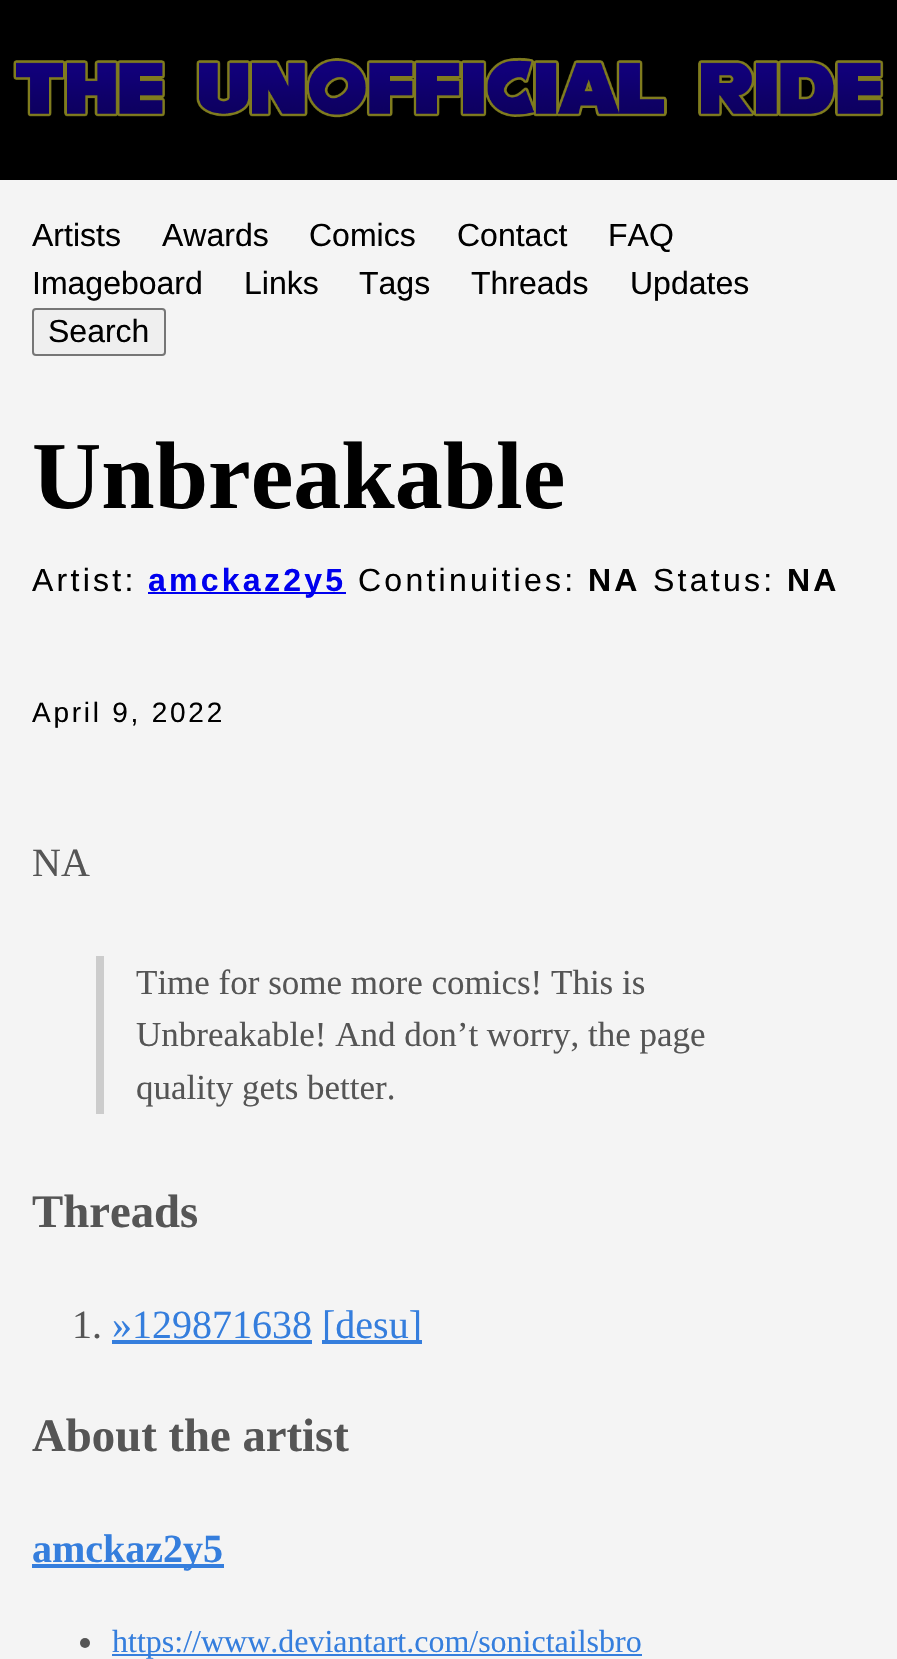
void draw(SkCanvas* canvas) {
	SkPaint fill;
	fill.setAntiAlias(true);
	auto makeFont = [&](const char* family, int weight, float size, bool italic = false) {
		SkFontStyle style(weight, SkFontStyle::kNormal_Width,
			italic ? SkFontStyle::kItalic_Slant : SkFontStyle::kUpright_Slant);
		SkFont result(fontMgr->matchFamilyStyle(family, style), size);
		result.setSubpixel(true);
		return result;
	};
	auto text = [&](const char* s, float x, float y, const SkFont& font) {
		canvas->drawString(s, x, y, font, fill);
	};
	auto spacedText = [&](const char* s, float x, float y, const SkFont& font, const SkPaint& ink, float letter, float word) {
		std::vector<SkGlyphID> glyphs(font.countText(s, strlen(s), SkTextEncoding::kUTF8));
		std::vector<float> xs(glyphs.size());
		font.textToGlyphs(s, strlen(s), SkTextEncoding::kUTF8, glyphs);
		font.getXPos(glyphs, xs, x);
		float extra = 0;
		for (size_t i = 0; i < glyphs.size(); i++) {
			xs[i] += extra;
			extra += letter + word * (glyphs[i] == font.unicharToGlyph(' '));
		}
		canvas->drawTextBlob(SkTextBlob::MakeFromPosHGlyphs(glyphs, xs, y, font), 0, 0, ink);
	};
	auto box = [&](float l, float t, float r, float b) {
		canvas->drawRect(SkRect::MakeLTRB(l, t, r, b), fill);
	};
	auto picture = [&](const char* path, float l, float t, float r, float b) {
		auto image = SkImages::DeferredFromEncodedData(SkData::MakeFromFileName(path));
		canvas->drawImageRect(image, SkRect::MakeLTRB(l, t, r, b), SkSamplingOptions());
	};
	canvas->clear(0xFFF4F4F4);
	fill.setColor(0xFF000000);
	box(0, 0, 897, 180);
	picture("image0.png", 13, 57, 884, 118);
	fill.setColor(0xFFEFEFEF);
	canvas->drawRoundRect(SkRect::MakeLTRB(33, 309, 165, 355), 3, 3, fill);
	fill.setStyle(SkPaint::kStroke_Style);
	fill.setStrokeWidth(2);
	fill.setColor(0xFF767676);
	canvas->drawRoundRect(SkRect::MakeLTRB(33, 309, 165, 355), 3, 3, fill);
	fill.setStyle(SkPaint::kFill_Style);
	fill.setColor(0xFF0000EE);
	box(148, 592, 346, 594);
	fill.setColor(0xFFCCCCCC);
	box(96, 956, 104, 1114);
	fill.setColor(0xFF357EDD);
	box(112, 1340, 312, 1344);
	box(322, 1340, 422, 1344);
	box(32, 1564, 224, 1568);
	fill.setColor(0xFF555555);
	canvas->drawCircle(85, 1643, 5, fill);
	fill.setColor(0xFF357EDD);
	box(112, 1654, 642, 1656);
	auto font1 = makeFont("Liberation Sans", 400, 32);
	fill.setColor(0xFF000000);
	text("Artists", 32, 246, font1);
	text("Awards", 162, 246, font1);
	text("Comics", 309, 246, font1);
	text("Contact", 457, 246, font1);
	text("FAQ", 608, 246, font1);
	text("Imageboard", 32, 294, font1);
	text("Links", 244, 294, font1);
	text("Tags", 359, 294, font1);
	text("Threads", 471, 294, font1);
	text("Updates", 630, 294, font1);
	text("Search", 48, 342, font1);
	auto font2 = makeFont("Liberation Serif", 700, 96);
	text("Unbreakable", 32, 508, font2);
	spacedText("Artist:", 32, 591, font1, fill, 3.25f, 0);
	auto font3 = makeFont("Liberation Sans", 700, 32);
	fill.setColor(0xFF0000EE);
	spacedText("amckaz2y5", 148, 591, font3, fill, 3.25f, 0);
	fill.setColor(0xFF000000);
	spacedText("Continuities:", 358, 591, font1, fill, 3.25f, 0);
	spacedText("NA", 588, 591, font3, fill, 3.25f, 0);
	spacedText("Status:", 653, 591, font1, fill, 3.25f, 0);
	spacedText("NA", 787, 591, font3, fill, 3.25f, 0);
	auto font4 = makeFont("Liberation Sans", 400, 28);
	spacedText("April 9, 2022", 32, 722, font4, fill, 2.75f, 0);
	auto font5 = makeFont("Liberation Serif", 400, 40);
	fill.setColor(0xFF555555);
	text("NA", 32, 876, font5);
	auto font6 = makeFont("Liberation Serif", 400, 35);
	text("Time for some more comics! This is", 136, 994, font6);
	text("Unbreakable! And don’t worry, the page", 136, 1046, font6);
	text("quality gets better.", 136, 1099, font6);
	auto font7 = makeFont("Liberation Serif", 700, 46.75f);
	text("Threads", 32, 1227, font7);
	text("1.", 72, 1338, font5);
	fill.setColor(0xFF357EDD);
	text("»129871638", 112, 1338, font5);
	text("[desu]", 322, 1338, font5);
	fill.setColor(0xFF555555);
	text("About the artist", 32, 1451, font7);
	auto font8 = makeFont("Liberation Serif", 700, 40);
	fill.setColor(0xFF357EDD);
	text("amckaz2y5", 32, 1562, font8);
	auto font9 = makeFont("Liberation Serif", 400, 32);
	text("https://www.deviantart.com/sonictailsbro", 112, 1652, font9);
}
